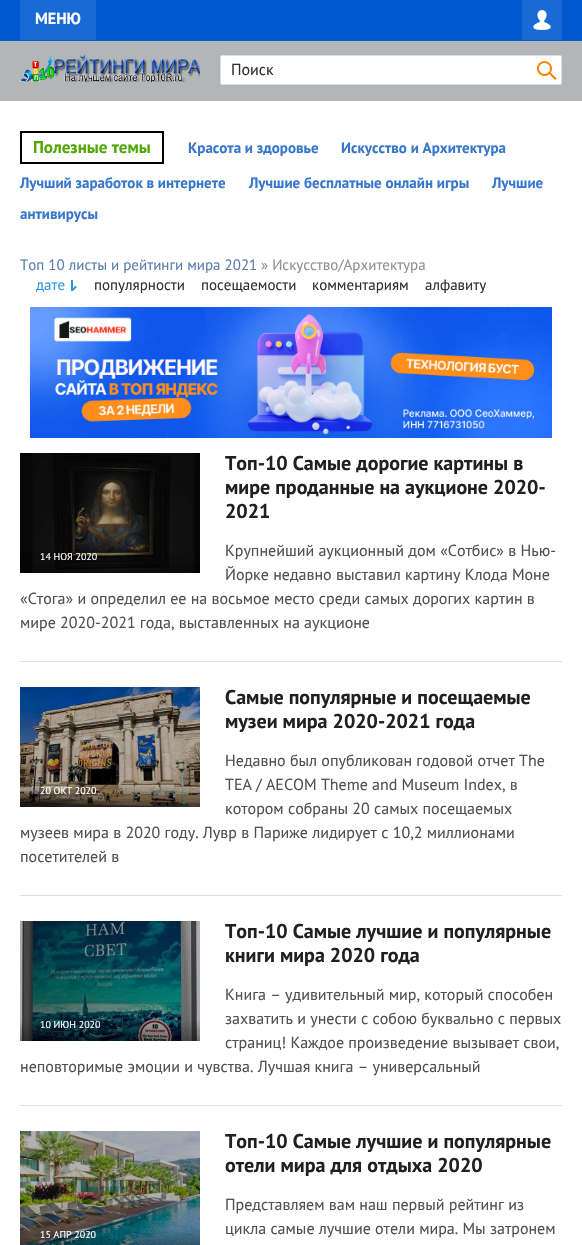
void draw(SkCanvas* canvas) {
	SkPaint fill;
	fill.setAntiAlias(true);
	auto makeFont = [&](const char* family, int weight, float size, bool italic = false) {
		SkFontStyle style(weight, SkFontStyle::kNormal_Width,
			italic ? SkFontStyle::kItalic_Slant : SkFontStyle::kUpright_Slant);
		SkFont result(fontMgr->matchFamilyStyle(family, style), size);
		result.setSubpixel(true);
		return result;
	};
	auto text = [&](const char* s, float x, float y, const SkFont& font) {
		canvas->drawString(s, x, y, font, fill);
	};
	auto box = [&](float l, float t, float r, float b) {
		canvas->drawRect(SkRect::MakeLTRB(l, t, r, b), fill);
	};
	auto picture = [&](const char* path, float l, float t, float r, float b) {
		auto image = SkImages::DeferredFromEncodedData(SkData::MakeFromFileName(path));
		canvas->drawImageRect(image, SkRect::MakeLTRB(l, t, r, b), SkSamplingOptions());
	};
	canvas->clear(0xFFFFFFFF);
	fill.setColor(0xFF0059D1);
	box(0, 0, 582, 41);
	fill.setColor(0xFF1A6AD6);
	box(20, 0, 96, 40);
	box(522, 0, 562, 40);
	picture("image0.png", 533, 10, 551, 30);
	fill.setColor(0xFFB4B5B6);
	box(0, 41, 582, 101);
	picture("image1.png", 20, 55, 200, 82);
	fill.setColor(0xFFFFFFFF);
	canvas->drawRoundRect(SkRect::MakeLTRB(220.5f, 55.5f, 561.5f, 84.5f), 1.5f, 1.5f, fill);
	fill.setStyle(SkPaint::kStroke_Style);
	fill.setStrokeWidth(1);
	fill.setColor(0xFFDDDDDD);
	canvas->drawRoundRect(SkRect::MakeLTRB(220.5f, 55.5f, 561.5f, 84.5f), 1.5f, 1.5f, fill);
	picture("image2.png", 537, 61, 557, 80);
	fill.setStrokeWidth(2);
	fill.setColor(0xFF000000);
	canvas->drawRect(SkRect::MakeLTRB(21, 132, 163, 163), fill);
	picture("image3.png", 71, 280, 77, 291);
	picture("image4.png", 30, 307, 552, 438);
	fill.setStyle(SkPaint::kFill_Style);
	fill.setColor(0xFFE1E1E1);
	box(20, 661, 562, 662);
	picture("image5.png", 20, 453, 200, 573);
	box(20, 895, 562, 896);
	picture("image6.png", 20, 687, 200, 807);
	box(20, 1105, 562, 1106);
	picture("image7.png", 20, 921, 200, 1041);
	picture("image8.png", 20, 1131, 200, 1245);
	auto font1 = makeFont("PT Sans", 700, 16);
	fill.setColor(0xFFFFFFFF);
	text("МЕНЮ", 35, 24, font1);
	auto font2 = makeFont("PT Sans", 400, 16);
	fill.setColor(0xFF303030);
	text("Поиск", 231, 75, font2);
	auto font3 = makeFont("PT Sans", 700, 17);
	fill.setColor(0xFF50A603);
	text("Полезные темы", 33, 153, font3);
	auto font4 = makeFont("PT Sans", 700, 15);
	fill.setColor(0xFF3676CD);
	text("Красота и здоровье", 188, 153, font4);
	text("Искусство и Архитектура", 341, 153, font4);
	text("Лучший заработок в интернете", 20, 188, font4);
	text("Лучшие бесплатные онлайн игры", 249, 188, font4);
	text("Лучшие", 492, 188, font4);
	text("антивирусы", 20, 219, font4);
	auto font5 = makeFont("PT Sans", 400, 15);
	fill.setColor(0xFF5A7DAB);
	text("Топ 10 листы и рейтинги мира 2021", 20, 270, font5);
	fill.setColor(0xFF909090);
	text("» Искусство/Архитектура", 261, 270, font5);
	fill.setColor(0xFF3394E6);
	text("дате", 36, 290, font5);
	fill.setColor(0xFF303030);
	text("популярности", 94, 290, font5);
	text("посещаемости", 201, 290, font5);
	text("комментариям", 312, 290, font5);
	text("алфавиту", 425, 290, font5);
	auto font6 = makeFont("PT Sans", 700, 20);
	fill.setColor(0xFF202020);
	text("Топ-10 Самые дорогие картины в", 225, 470, font6);
	text("мире проданные на аукционе 2020-", 225, 494, font6);
	text("2021", 225, 518, font6);
	fill.setColor(0xFF505050);
	text("Крупнейший аукционный дом «Сотбис» в Нью-", 225, 556, font2);
	text("Йорке недавно выставил картину Клода Моне", 225, 580, font2);
	text("«Стога» и определил ее на восьмое место среди самых дорогих картин в", 20, 604, font2);
	text("мире 2020-2021 года, выставленных на аукционе", 20, 628, font2);
	auto font7 = makeFont("PT Sans", 400, 10);
	fill.setColor(0xFFFFFFFF);
	text("14 НОЯ 2020", 40, 560, font7);
	fill.setColor(0xFF202020);
	text("Самые популярные и посещаемые", 225, 704, font6);
	text("музеи мира 2020-2021 года", 225, 728, font6);
	fill.setColor(0xFF505050);
	text("Недавно был опубликован годовой отчет The", 225, 766, font2);
	text("TEA / AECOM Theme and Museum Index, в", 225, 790, font2);
	text("котором собраны 20 самых посещаемых", 225, 814, font2);
	text("музеев мира в 2020 году. Лувр в Париже лидирует с 10,2 миллионами", 20, 838, font2);
	text("посетителей в", 20, 862, font2);
	fill.setColor(0xFFFFFFFF);
	text("20 ОКТ 2020", 40, 794, font7);
	fill.setColor(0xFF202020);
	text("Топ-10 Самые лучшие и популярные", 225, 938, font6);
	text("книги мира 2020 года", 225, 962, font6);
	fill.setColor(0xFF505050);
	text("Книга – удивительный мир, который способен", 225, 1000, font2);
	text("захватить и унести с собою буквально с первых", 225, 1024, font2);
	text("страниц! Каждое произведение вызывает свои,", 225, 1048, font2);
	text("неповторимые эмоции и чувства. Лучшая книга – универсальный", 20, 1072, font2);
	fill.setColor(0xFFFFFFFF);
	text("10 ИЮН 2020", 40, 1028, font7);
	text("15 АПР 2020", 40, 1238, font7);
	fill.setColor(0xFF202020);
	text("Топ-10 Самые лучшие и популярные", 225, 1148, font6);
	text("отели мира для отдыха 2020", 225, 1172, font6);
	fill.setColor(0xFF505050);
	text("Представляем вам наш первый рейтинг из", 225, 1210, font2);
	text("цикла самые лучшие отели мира. Мы затронем", 225, 1234, font2);
}
